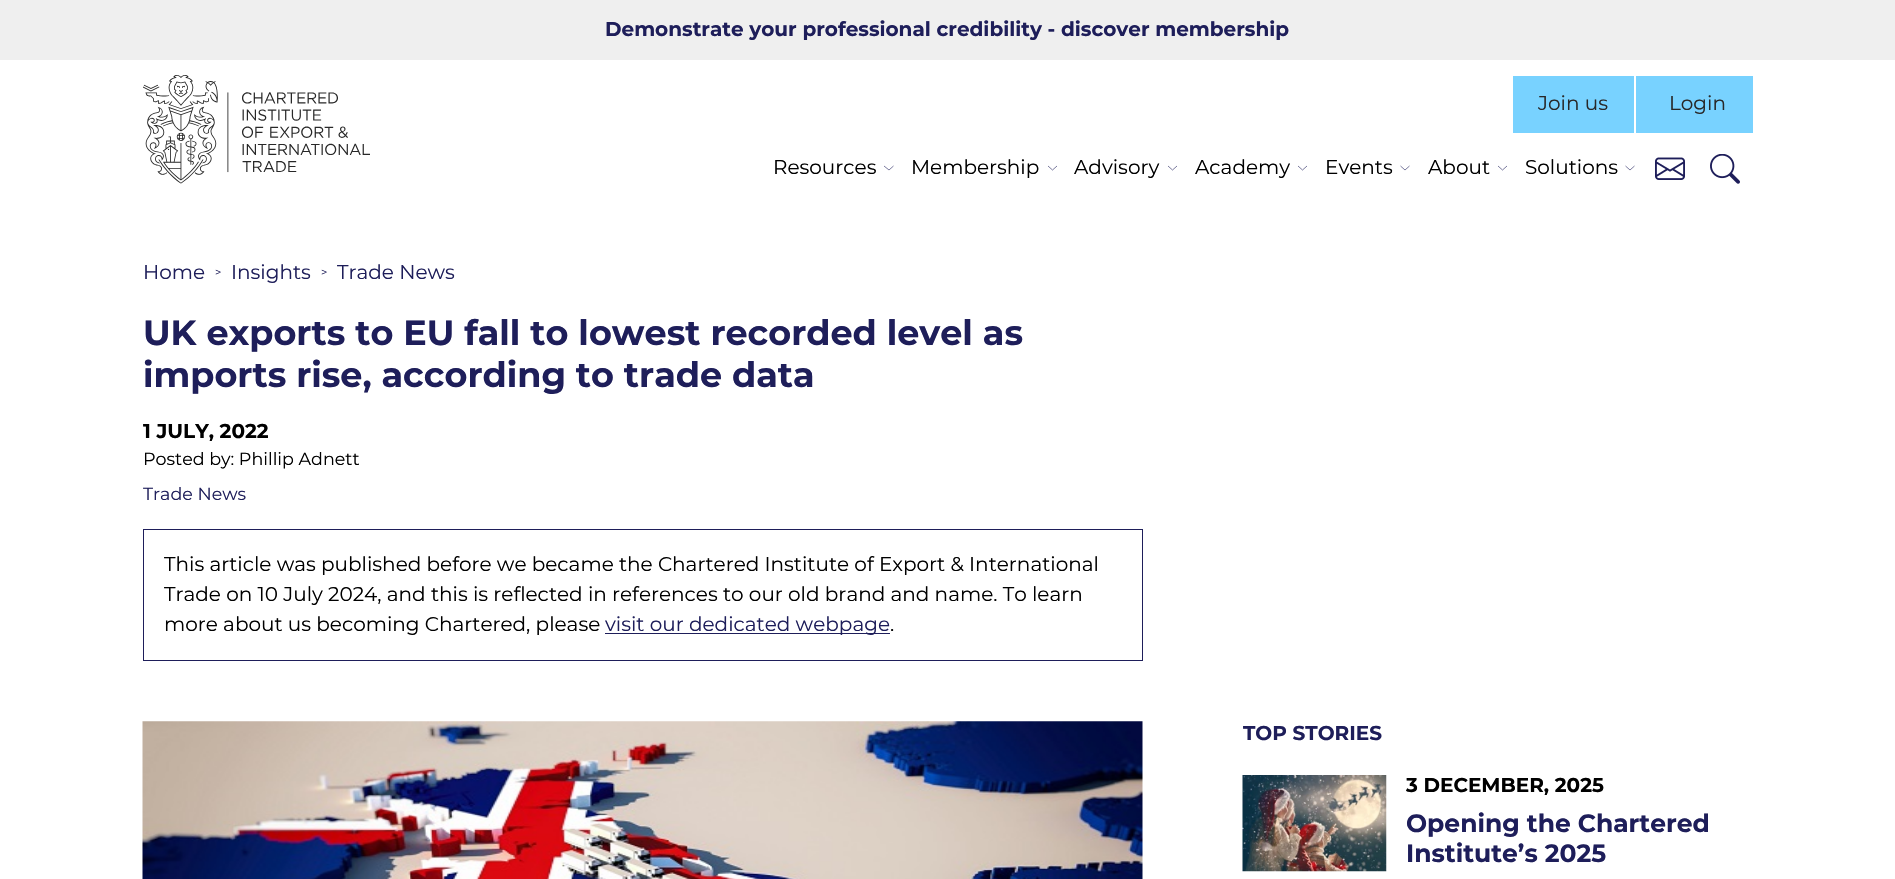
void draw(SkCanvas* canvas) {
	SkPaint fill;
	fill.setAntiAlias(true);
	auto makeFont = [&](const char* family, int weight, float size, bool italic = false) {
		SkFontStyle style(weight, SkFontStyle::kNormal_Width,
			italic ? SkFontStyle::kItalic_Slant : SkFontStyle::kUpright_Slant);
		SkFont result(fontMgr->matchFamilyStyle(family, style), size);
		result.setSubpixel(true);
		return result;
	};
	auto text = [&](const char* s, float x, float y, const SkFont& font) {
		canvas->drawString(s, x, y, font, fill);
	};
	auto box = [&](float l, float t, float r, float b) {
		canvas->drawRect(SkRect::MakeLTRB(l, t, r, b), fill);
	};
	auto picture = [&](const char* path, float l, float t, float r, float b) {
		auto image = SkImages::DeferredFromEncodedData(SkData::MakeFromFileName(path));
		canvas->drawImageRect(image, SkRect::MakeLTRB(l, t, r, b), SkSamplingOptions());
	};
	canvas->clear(0xFFFFFFFF);
	fill.setColor(0xFFEFEFEF);
	box(0, 0, 1895, 60);
	picture("image0.png", 143, 75, 370, 184);
	fill.setColor(0xFF78D2FF);
	box(1513, 76, 1634, 133);
	box(1636, 76, 1753, 133);
	fill.setStyle(SkPaint::kStroke_Style);
	fill.setStrokeWidth(0.6f);
	fill.setColor(0xFF1E1E5A);
	canvas->drawPath(SkPathBuilder().moveTo(884, 166).lineTo(889, 170).lineTo(893.5f, 166).detach(), fill);
	canvas->drawPath(SkPathBuilder().moveTo(1048, 166).lineTo(1052.5f, 170).lineTo(1057, 166).detach(), fill);
	canvas->drawPath(SkPathBuilder().moveTo(1168, 166).lineTo(1172.5f, 170).lineTo(1177, 166).detach(), fill);
	canvas->drawPath(SkPathBuilder().moveTo(1298, 166).lineTo(1302.5f, 170).lineTo(1307, 166).detach(), fill);
	canvas->drawPath(SkPathBuilder().moveTo(1400.5f, 166).lineTo(1405, 170).lineTo(1409.5f, 166).detach(), fill);
	canvas->drawPath(SkPathBuilder().moveTo(1498, 166).lineTo(1502.5f, 170).lineTo(1507, 166).detach(), fill);
	canvas->drawPath(SkPathBuilder().moveTo(1625.5f, 166).lineTo(1630, 170).lineTo(1634.5f, 166).detach(), fill);
	picture("image1.png", 1655, 157, 1685, 180);
	picture("image2.png", 1710, 154, 1740, 184);
	fill.setStrokeWidth(1);
	canvas->drawRect(SkRect::MakeLTRB(143.5f, 529.5f, 1142.5f, 660.5f), fill);
	fill.setStyle(SkPaint::kFill_Style);
	box(605, 633, 890, 634);
	picture("image3.png", 142, 721, 1143, 879);
	picture("image4.png", 1242, 775, 1387, 872);
	auto font1 = makeFont("Montserrat", 700, 20);
	text("Demonstrate your professional credibility - discover membership", 605, 36, font1);
	auto font2 = makeFont("Montserrat", 400, 20);
	fill.setColor(0xFF282828);
	text("Join us", 1538, 110, font2);
	text("Login", 1669, 110, font2);
	fill.setColor(0xFF000000);
	text("Resources", 773, 174, font2);
	text("Membership", 911, 174, font2);
	text("Advisory", 1074, 174, font2);
	text("Academy", 1195, 174, font2);
	text("Events", 1325, 174, font2);
	text("About", 1428, 174, font2);
	text("Solutions", 1525, 174, font2);
	fill.setColor(0xFF1E1E5A);
	text("Home", 143, 279, font2);
	auto font3 = makeFont("Montserrat", 400, 11);
	text(">", 215, 276, font3);
	text("Insights", 231, 279, font2);
	text(">", 321, 276, font3);
	text("Trade News", 337, 279, font2);
	auto font4 = makeFont("Montserrat", 700, 35);
	text("UK exports to EU fall to lowest recorded level as", 143, 345, font4);
	text("imports rise, according to trade data", 143, 387, font4);
	fill.setColor(0xFF000000);
	text("1 JULY, 2022", 143, 438, font1);
	auto font5 = makeFont("Montserrat", 400, 17.5f);
	text("Posted by: Phillip Adnett", 143, 465, font5);
	fill.setColor(0xFF1E1E5A);
	text("Trade News", 143, 500, font5);
	fill.setColor(0xFF000000);
	text("This article was published before we became the Chartered Institute of Export & International", 164, 571, font2);
	text("Trade on 10 July 2024, and this is reflected in references to our old brand and name. To learn", 164, 601, font2);
	text("more about us becoming Chartered, please", 164, 631, font2);
	fill.setColor(0xFF1E1E5A);
	text("visit our dedicated webpage", 605, 631, font2);
	fill.setColor(0xFF000000);
	text(".", 890, 631, font2);
	fill.setColor(0xFF1E1E5A);
	text("TOP STORIES", 1243, 740, font1);
	fill.setColor(0xFF000000);
	text("3 DECEMBER, 2025", 1406, 792, font1);
	auto font6 = makeFont("Montserrat", 700, 25);
	fill.setColor(0xFF1E1E5A);
	text("Opening the Chartered", 1406, 832, font6);
	text("Institute’s 2025", 1406, 862, font6);
}
